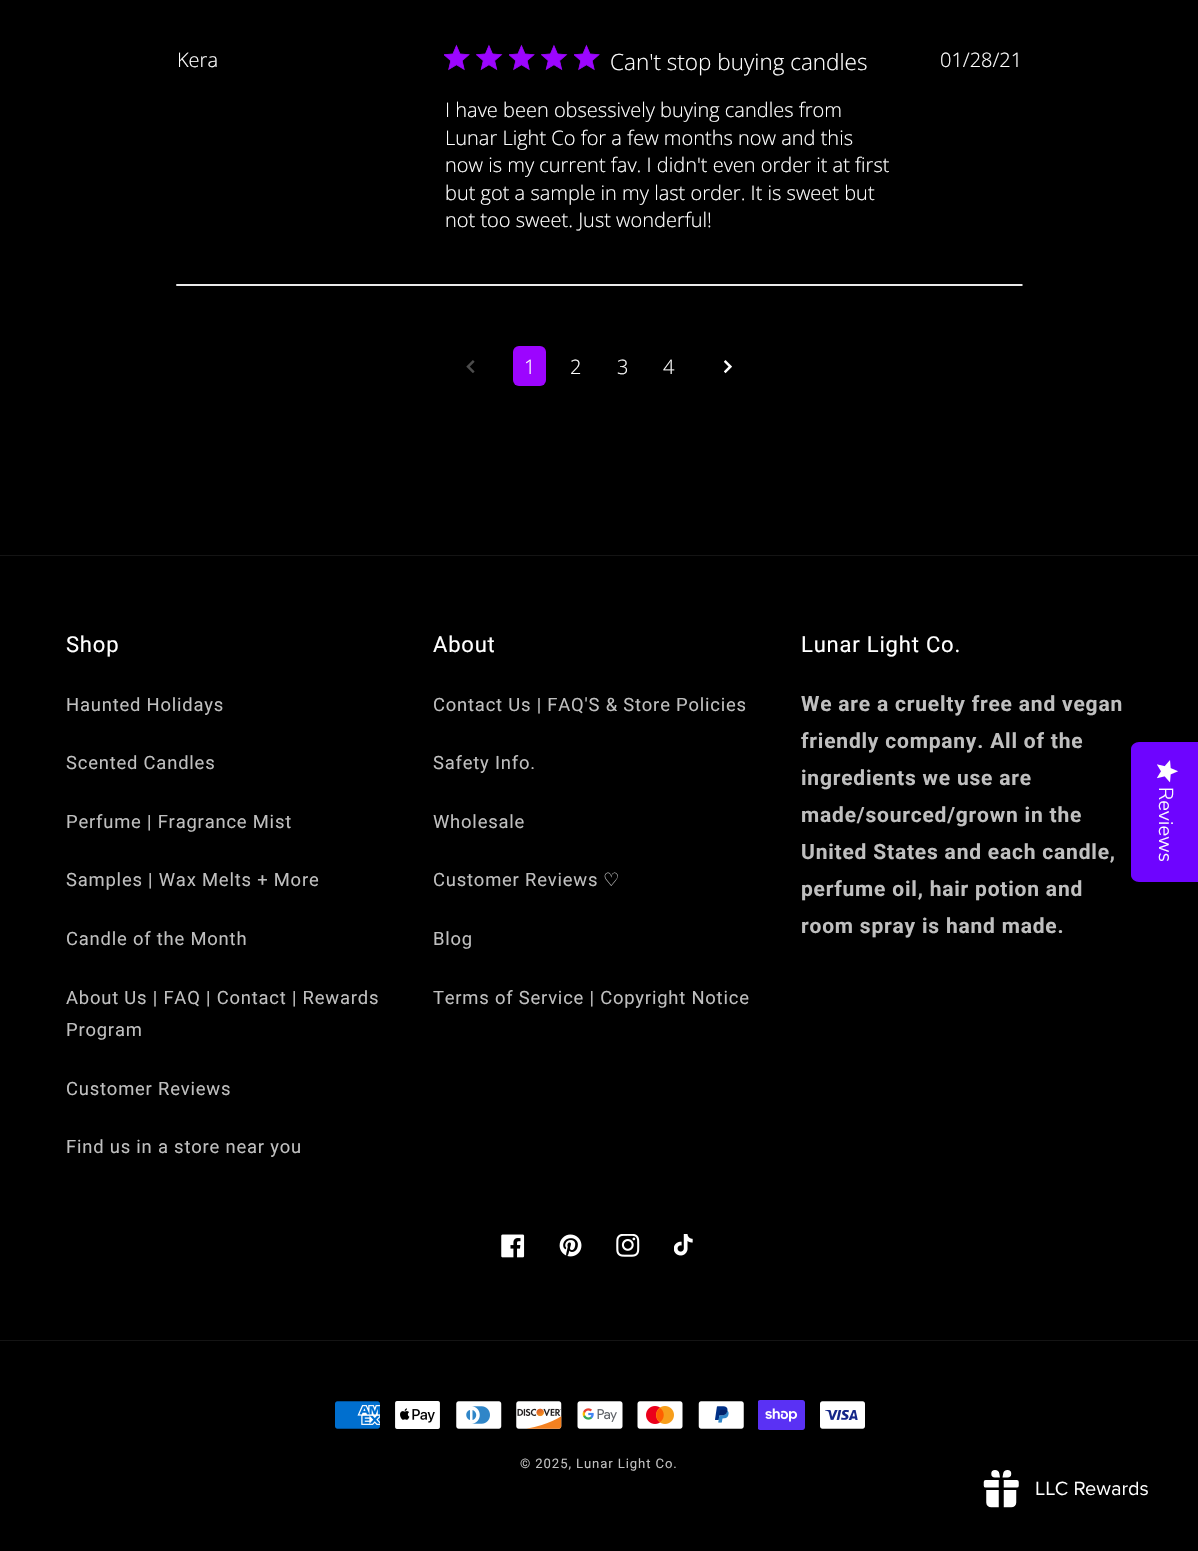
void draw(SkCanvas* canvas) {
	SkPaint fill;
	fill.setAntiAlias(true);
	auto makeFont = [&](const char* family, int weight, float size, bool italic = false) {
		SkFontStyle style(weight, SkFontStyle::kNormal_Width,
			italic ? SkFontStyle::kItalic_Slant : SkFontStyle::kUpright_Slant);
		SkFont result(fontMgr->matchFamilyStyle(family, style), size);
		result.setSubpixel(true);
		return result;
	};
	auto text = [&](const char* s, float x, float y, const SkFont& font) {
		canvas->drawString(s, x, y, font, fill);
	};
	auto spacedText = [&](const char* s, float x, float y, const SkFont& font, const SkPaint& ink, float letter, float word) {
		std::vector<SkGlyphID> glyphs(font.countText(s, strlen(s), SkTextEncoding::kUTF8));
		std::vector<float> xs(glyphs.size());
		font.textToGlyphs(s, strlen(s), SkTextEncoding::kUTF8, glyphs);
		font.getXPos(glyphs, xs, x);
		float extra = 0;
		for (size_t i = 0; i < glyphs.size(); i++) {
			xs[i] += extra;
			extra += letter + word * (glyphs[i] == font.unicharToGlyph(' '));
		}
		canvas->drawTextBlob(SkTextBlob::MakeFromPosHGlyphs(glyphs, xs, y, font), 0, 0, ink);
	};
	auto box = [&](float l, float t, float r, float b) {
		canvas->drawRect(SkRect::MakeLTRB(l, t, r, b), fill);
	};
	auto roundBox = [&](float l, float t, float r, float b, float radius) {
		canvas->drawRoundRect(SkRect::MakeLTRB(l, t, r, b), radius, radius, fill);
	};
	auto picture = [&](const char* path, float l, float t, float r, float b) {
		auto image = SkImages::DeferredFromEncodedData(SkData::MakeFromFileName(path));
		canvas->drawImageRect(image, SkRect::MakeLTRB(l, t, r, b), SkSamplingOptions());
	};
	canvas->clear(0xFF000000);
	picture("image0.png", 444, 44, 470, 71);
	picture("image1.png", 476, 44, 503, 71);
	picture("image0.png", 509, 44, 535, 71);
	picture("image1.png", 541, 44, 568, 71);
	picture("image0.png", 574, 44, 600, 71);
	picture("image2.png", 176, 284, 1023, 286);
	picture("image3.png", 466, 360, 475, 373);
	fill.setColor(0xFF9C05FF);
	roundBox(513, 346, 546, 386, 6);
	picture("image4.png", 724, 360, 732, 374);
	fill.setColor(0xFF141414);
	box(0, 555, 1198, 556);
	picture("image5.png", 501, 1234, 525, 1258);
	picture("image6.png", 559, 1234, 582, 1257);
	picture("image7.png", 616, 1234, 640, 1257);
	picture("image8.png", 674, 1234, 693, 1256);
	box(0, 1340, 1198, 1341);
	picture("image9.png", 335, 1401, 380, 1429);
	picture("image10.png", 395, 1401, 440, 1429);
	picture("image11.png", 456, 1401, 502, 1429);
	picture("image12.png", 516, 1401, 562, 1429);
	picture("image13.png", 577, 1401, 623, 1429);
	picture("image14.png", 637, 1401, 683, 1429);
	picture("image15.png", 698, 1401, 744, 1429);
	picture("image16.png", 758, 1400, 805, 1430);
	picture("image17.png", 820, 1401, 865, 1429);
	fill.setColor(0xFF6E04FF);
	canvas->drawPath(SkPathBuilder().moveTo(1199, 742).lineTo(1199, 882).lineTo(1139, 882).cubicTo(1135, 882, 1131, 879, 1131, 875).lineTo(1131, 749).cubicTo(1131, 745, 1135, 742, 1139, 742).close().detach(), fill);
	picture("image18.png", 1157, 760, 1178, 783);
	picture("image19.png", 983, 1470, 1148, 1508);
	auto font1 = makeFont("Open Sans", 300, 20);
	fill.setColor(0xFFFFFFFF);
	text("Kera", 177, 67, font1);
	auto font2 = makeFont("Open Sans", 300, 22.5f);
	text("Can't stop buying candles", 610, 70, font2);
	text("I have been obsessively buying candles from", 445, 117, font1);
	text("Lunar Light Co for a few months now and this", 445, 145, font1);
	text("now is my current fav. I didn't even order it at first", 445, 172, font1);
	text("but got a sample in my last order. It is sweet but", 445, 200, font1);
	text("not too sweet. Just wonderful!", 445, 227, font1);
	text("01/28/21", 940, 67, font1);
	text("1", 524, 374, font1);
	text("2", 570, 374, font1);
	text("3", 617, 374, font1);
	text("4", 663, 374, font1);
	auto font3 = makeFont("Roboto", 400, 22);
	spacedText("Shop", 66, 652, font3, fill, 0.8f, 0);
	auto font4 = makeFont("Roboto", 400, 18.4f);
	fill.setColor(0xFFBFBFBF);
	spacedText("Haunted Holidays", 66, 711, font4, fill, 0.8f, 0);
	spacedText("Scented Candles", 66, 769, font4, fill, 0.8f, 0);
	spacedText("Perfume | Fragrance Mist", 66, 828, font4, fill, 0.8f, 0);
	spacedText("Samples | Wax Melts + More", 66, 886, font4, fill, 0.8f, 0);
	spacedText("Candle of the Month", 66, 945, font4, fill, 0.8f, 0);
	spacedText("About Us | FAQ | Contact | Rewards", 66, 1004, font4, fill, 0.8f, 0);
	spacedText("Program", 66, 1036, font4, fill, 0.8f, 0);
	spacedText("Customer Reviews", 66, 1095, font4, fill, 0.8f, 0);
	spacedText("Find us in a store near you", 66, 1153, font4, fill, 0.8f, 0);
	fill.setColor(0xFFFFFFFF);
	spacedText("About", 433, 652, font3, fill, 0.8f, 0);
	fill.setColor(0xFFBFBFBF);
	spacedText("Contact Us | FAQ'S & Store Policies", 433, 711, font4, fill, 0.8f, 0);
	spacedText("Safety Info.", 433, 769, font4, fill, 0.8f, 0);
	spacedText("Wholesale", 433, 828, font4, fill, 0.8f, 0);
	spacedText("Customer Reviews", 433, 886, font4, fill, 0.8f, 0);
	auto font5 = makeFont("DejaVu Sans", 400, 18.4f);
	spacedText("♡", 603, 886, font5, fill, 0.8f, 0);
	spacedText("Blog", 433, 945, font4, fill, 0.8f, 0);
	spacedText("Terms of Service | Copyright Notice", 433, 1004, font4, fill, 0.8f, 0);
	fill.setColor(0xFFFFFFFF);
	spacedText("Lunar Light Co.", 801, 652, font3, fill, 0.8f, 0);
	auto font6 = makeFont("Roboto", 700, 21);
	fill.setColor(0xFFBFBFBF);
	spacedText("We are a cruelty free and vegan", 801, 711, font6, fill, 0.8f, 0);
	spacedText("friendly company. All of the", 801, 748, font6, fill, 0.8f, 0);
	spacedText("ingredients we use are", 801, 785, font6, fill, 0.8f, 0);
	spacedText("made/sourced/grown in the", 801, 822, font6, fill, 0.8f, 0);
	spacedText("United States and each candle,", 801, 859, font6, fill, 0.8f, 0);
	spacedText("perfume oil, hair potion and", 801, 896, font6, fill, 0.8f, 0);
	spacedText("room spray is hand made.", 801, 933, font6, fill, 0.8f, 0);
	auto font7 = makeFont("Roboto", 400, 13.1f);
	spacedText("© 2025, Lunar Light Co.", 520, 1468, font7, fill, 0.9f, 0);
	auto font8 = makeFont("Nunito Sans", 300, 20);
	fill.setColor(0xFFFFFFFF);
	canvas->save();
	canvas->rotate(90, 1159, 787);
	text("Reviews", 1159, 787, font8);
	canvas->restore();
}
